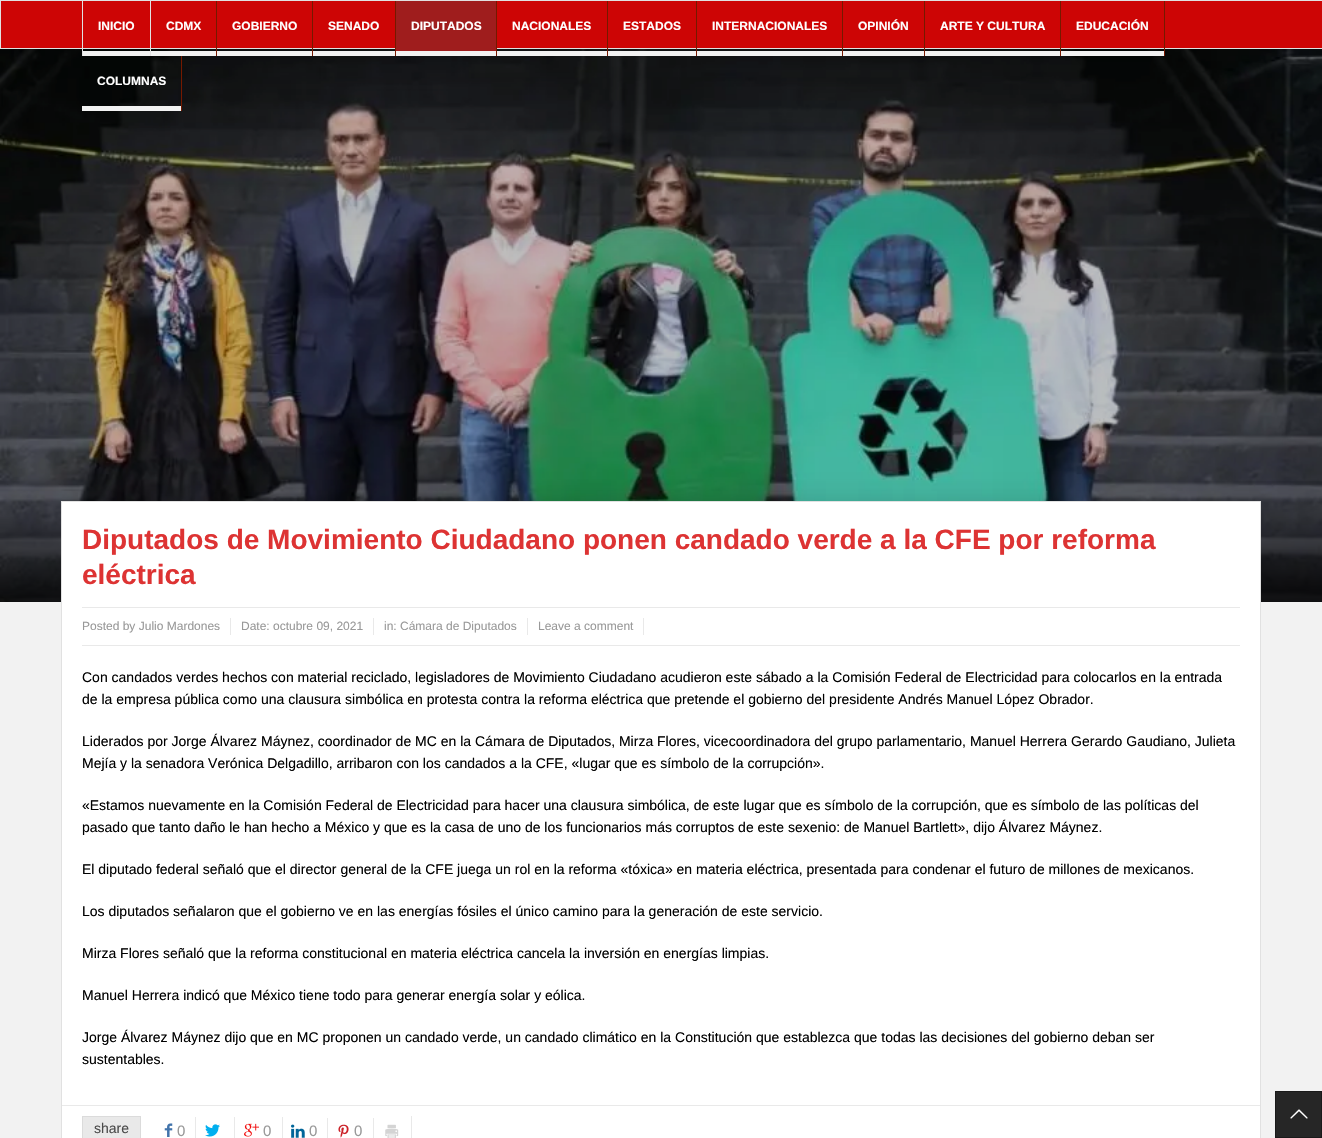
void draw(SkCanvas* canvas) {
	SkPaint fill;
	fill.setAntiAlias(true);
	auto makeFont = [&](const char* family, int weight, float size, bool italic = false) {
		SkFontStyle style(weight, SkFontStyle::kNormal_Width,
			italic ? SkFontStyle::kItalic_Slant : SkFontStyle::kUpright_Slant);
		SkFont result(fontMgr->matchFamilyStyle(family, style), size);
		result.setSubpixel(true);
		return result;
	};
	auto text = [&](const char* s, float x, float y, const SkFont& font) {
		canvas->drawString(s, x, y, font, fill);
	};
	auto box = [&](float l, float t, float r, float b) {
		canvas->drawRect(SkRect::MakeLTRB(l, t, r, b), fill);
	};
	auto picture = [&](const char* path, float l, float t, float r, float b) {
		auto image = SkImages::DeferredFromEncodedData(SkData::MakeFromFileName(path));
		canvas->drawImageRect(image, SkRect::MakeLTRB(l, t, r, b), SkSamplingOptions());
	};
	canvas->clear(0xFFF2F2F2);
	fill.setColor(0xFFCD0505);
	canvas->drawRect(SkRect::MakeLTRB(0.5f, 0.5f, 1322.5f, 48.5f), fill);
	fill.setStyle(SkPaint::kStroke_Style);
	fill.setStrokeWidth(1);
	fill.setColor(0xFFE1E1E1);
	canvas->drawRect(SkRect::MakeLTRB(0.5f, 0.5f, 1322.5f, 48.5f), fill);
	picture("image0.png", 0, 49, 1322, 602);
	picture("image1.png", 0, 49, 1322, 602);
	fill.setStyle(SkPaint::kFill_Style);
	box(150, 1, 151, 56);
	box(82, 1, 83, 56);
	fill.setColor(0xFFF2F2F2);
	box(83, 51, 150, 56);
	fill.setColor(0xFF751900);
	box(216, 1, 217, 56);
	fill.setColor(0xFFF2F2F2);
	box(151, 51, 216, 56);
	fill.setColor(0xFF751900);
	box(312, 1, 313, 56);
	fill.setColor(0xFFF2F2F2);
	box(217, 51, 312, 56);
	fill.setColor(0xFF751900);
	box(395, 1, 396, 56);
	fill.setColor(0xFFF2F2F2);
	box(313, 51, 395, 56);
	fill.setColor(0xFF9F1D1D);
	box(396, 1, 496, 51);
	fill.setColor(0xFF751900);
	box(496, 1, 497, 56);
	fill.setColor(0xFFF2F2F2);
	box(396, 51, 496, 56);
	fill.setColor(0xFF751900);
	box(607, 1, 608, 56);
	fill.setColor(0xFFF2F2F2);
	box(497, 51, 607, 56);
	fill.setColor(0xFF751900);
	box(696, 1, 697, 56);
	fill.setColor(0xFFF2F2F2);
	box(608, 51, 696, 56);
	fill.setColor(0xFF751900);
	box(842, 1, 843, 56);
	fill.setColor(0xFFF2F2F2);
	box(697, 51, 842, 56);
	fill.setColor(0xFF751900);
	box(924, 1, 925, 56);
	fill.setColor(0xFFF2F2F2);
	box(843, 51, 924, 56);
	fill.setColor(0xFF751900);
	box(1060, 1, 1061, 56);
	fill.setColor(0xFFF2F2F2);
	box(925, 51, 1060, 56);
	fill.setColor(0xFF751900);
	box(1164, 1, 1165, 56);
	fill.setColor(0xFFF2F2F2);
	box(1061, 51, 1164, 56);
	fill.setColor(0xFF751900);
	box(181, 56, 182, 111);
	fill.setColor(0xFFF2F2F2);
	box(82, 106, 181, 111);
	fill.setColor(0xFFFFFFFF);
	canvas->drawRect(SkRect::MakeLTRB(61.5f, 501.5f, 1260.5f, 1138.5f), fill);
	fill.setStyle(SkPaint::kStroke_Style);
	fill.setColor(0xFFE1E1E1);
	canvas->drawRect(SkRect::MakeLTRB(61.5f, 501.5f, 1260.5f, 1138.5f), fill);
	fill.setStyle(SkPaint::kFill_Style);
	fill.setColor(0xFFE9E9E9);
	box(82, 607, 1240, 608);
	box(82, 645, 1240, 646);
	box(230, 618, 231, 635);
	box(373, 618, 374, 635);
	box(527, 618, 528, 635);
	box(643, 618, 644, 635);
	box(62, 1105, 1260, 1106);
	canvas->drawRect(SkRect::MakeLTRB(82.5f, 1116.5f, 140.5f, 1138.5f), fill);
	fill.setStyle(SkPaint::kStroke_Style);
	fill.setColor(0xFFDBDBDB);
	canvas->drawRect(SkRect::MakeLTRB(82.5f, 1116.5f, 140.5f, 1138.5f), fill);
	fill.setStyle(SkPaint::kFill_Style);
	fill.setColor(0xFFE9E9E9);
	box(195, 1117, 196, 1138);
	picture("image2.png", 164, 1123, 173, 1137);
	box(234, 1117, 235, 1138);
	picture("image3.png", 205, 1124, 220, 1137);
	box(282, 1117, 283, 1138);
	picture("image4.png", 244, 1123, 259, 1137);
	box(327, 1118, 328, 1138);
	picture("image5.png", 291, 1124, 305, 1138);
	box(373, 1118, 374, 1138);
	picture("image6.png", 338, 1124, 349, 1138);
	box(411, 1116, 412, 1138);
	picture("image7.png", 385, 1124, 399, 1138);
	fill.setColor(0xFF262626);
	canvas->drawRect(SkRect::MakeLTRB(1275.5f, 1091.5f, 1321.5f, 1137.5f), fill);
	fill.setStyle(SkPaint::kStroke_Style);
	fill.setColor(0xFF1A1A1A);
	canvas->drawRect(SkRect::MakeLTRB(1275.5f, 1091.5f, 1321.5f, 1137.5f), fill);
	picture("image8.png", 1290, 1109, 1308, 1119);
	auto font1 = makeFont("Liberation Sans", 700, 12);
	fill.setStyle(SkPaint::kFill_Style);
	fill.setColor(0xFFFFFFFF);
	text("INICIO", 98, 30, font1);
	text("CDMX", 166, 30, font1);
	text("GOBIERNO", 232, 30, font1);
	text("SENADO", 328, 30, font1);
	text("DIPUTADOS", 411, 30, font1);
	text("NACIONALES", 512, 30, font1);
	text("ESTADOS", 623, 30, font1);
	text("INTERNACIONALES", 712, 30, font1);
	text("OPINIÓN", 858, 30, font1);
	text("ARTE Y CULTURA", 940, 30, font1);
	text("EDUCACIÓN", 1076, 30, font1);
	text("COLUMNAS", 97, 85, font1);
	auto font2 = makeFont("Liberation Sans", 700, 28);
	fill.setColor(0xFFDD3333);
	text("Diputados de Movimiento Ciudadano ponen candado verde a la CFE por reforma", 82, 549, font2);
	text("eléctrica", 82, 584, font2);
	auto font3 = makeFont("Liberation Sans", 400, 12);
	fill.setColor(0xFF999999);
	text("Posted by Julio Mardones", 82, 630, font3);
	text("Date: octubre 09, 2021", 241, 630, font3);
	text("in: Cámara de Diputados", 384, 630, font3);
	text("Leave a comment", 538, 630, font3);
	auto font4 = makeFont("Liberation Sans", 400, 14);
	fill.setColor(0xFF000000);
	text("Con candados verdes hechos con material reciclado, legisladores de Movimiento Ciudadano acudieron este sábado a la Comisión Federal de Electricidad para colocarlos en la entrada", 82, 682, font4);
	text("de la empresa pública como una clausura simbólica en protesta contra la reforma eléctrica que pretende el gobierno del presidente Andrés Manuel López Obrador.", 82, 704, font4);
	text("Liderados por Jorge Álvarez Máynez, coordinador de MC en la Cámara de Diputados, Mirza Flores, vicecoordinadora del grupo parlamentario, Manuel Herrera Gerardo Gaudiano, Julieta", 82, 746, font4);
	text("Mejía y la senadora Verónica Delgadillo, arribaron con los candados a la CFE, «lugar que es símbolo de la corrupción».", 82, 768, font4);
	text("«Estamos nuevamente en la Comisión Federal de Electricidad para hacer una clausura simbólica, de este lugar que es símbolo de la corrupción, que es símbolo de las políticas del", 82, 810, font4);
	text("pasado que tanto daño le han hecho a México y que es la casa de uno de los funcionarios más corruptos de este sexenio: de Manuel Bartlett», dijo Álvarez Máynez.", 82, 832, font4);
	text("El diputado federal señaló que el director general de la CFE juega un rol en la reforma «tóxica» en materia eléctrica, presentada para condenar el futuro de millones de mexicanos.", 82, 874, font4);
	text("Los diputados señalaron que el gobierno ve en las energías fósiles el único camino para la generación de este servicio.", 82, 916, font4);
	text("Mirza Flores señaló que la reforma constitucional en materia eléctrica cancela la inversión en energías limpias.", 82, 958, font4);
	text("Manuel Herrera indicó que México tiene todo para generar energía solar y eólica.", 82, 1000, font4);
	text("Jorge Álvarez Máynez dijo que en MC proponen un candado verde, un candado climático en la Constitución que establezca que todas las decisiones del gobierno deban ser", 82, 1042, font4);
	text("sustentables.", 82, 1064, font4);
	fill.setColor(0xFF4B4B4B);
	text("share", 94, 1133, font4);
	auto font5 = makeFont("Liberation Sans", 400, 15);
	fill.setColor(0xFF999999);
	text("0", 177, 1136, font5);
	text("0", 263, 1136, font5);
	text("0", 309, 1136, font5);
	text("0", 354, 1136, font5);
}
